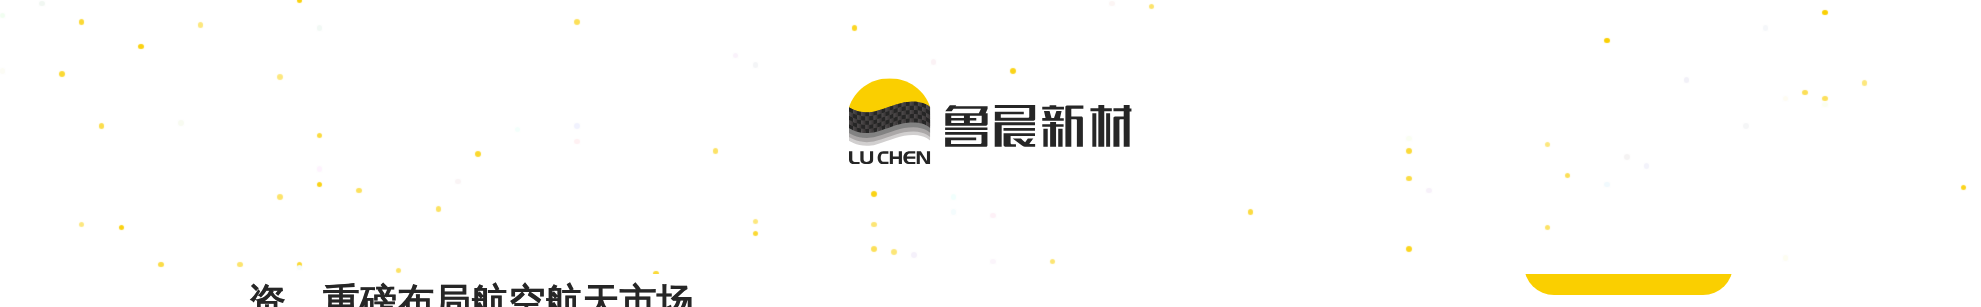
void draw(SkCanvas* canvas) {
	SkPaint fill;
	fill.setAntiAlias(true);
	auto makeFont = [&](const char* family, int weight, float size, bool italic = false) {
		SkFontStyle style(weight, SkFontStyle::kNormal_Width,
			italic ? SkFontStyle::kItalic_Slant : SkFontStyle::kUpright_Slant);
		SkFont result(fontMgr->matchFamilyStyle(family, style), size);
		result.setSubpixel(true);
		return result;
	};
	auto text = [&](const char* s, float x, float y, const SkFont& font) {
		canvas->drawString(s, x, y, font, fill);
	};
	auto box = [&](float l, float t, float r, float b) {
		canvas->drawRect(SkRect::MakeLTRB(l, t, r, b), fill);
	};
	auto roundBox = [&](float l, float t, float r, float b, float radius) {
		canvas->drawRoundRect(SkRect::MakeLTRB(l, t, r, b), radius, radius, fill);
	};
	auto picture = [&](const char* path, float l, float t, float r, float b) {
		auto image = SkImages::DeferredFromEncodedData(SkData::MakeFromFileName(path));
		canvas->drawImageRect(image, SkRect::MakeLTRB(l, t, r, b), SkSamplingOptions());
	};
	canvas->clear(0xFFFFFFFF);
	fill.setColor(0xFFFACF00);
	roundBox(1524, 235, 1733, 295, 30);
	fill.setColor(0xFFFFFFFF);
	box(1524, 235, 1733, 274);
	fill.setColor(0xFFF1F7F2);
	fill.setMaskFilter(SkMaskFilter::MakeBlur(kNormal_SkBlurStyle, 0.5f));
	canvas->drawRoundRect(SkRect::MakeLTRB(39, 1, 45, 6), 2.5f, 2.5f, fill);
	fill.setMaskFilter(nullptr);
	fill.setColor(0xFFFEF3FE);
	fill.setMaskFilter(SkMaskFilter::MakeBlur(kNormal_SkBlurStyle, 0.5f));
	canvas->drawRoundRect(SkRect::MakeLTRB(317, 166, 322, 172), 2.5f, 2.5f, fill);
	fill.setMaskFilter(nullptr);
	fill.setColor(0xFFF5F6F7);
	fill.setMaskFilter(SkMaskFilter::MakeBlur(kNormal_SkBlurStyle, 0.5f));
	canvas->drawRoundRect(SkRect::MakeLTRB(1743, 123, 1749, 129), 3, 3, fill);
	fill.setMaskFilter(nullptr);
	fill.setColor(0xFFF1FFFD);
	fill.setMaskFilter(SkMaskFilter::MakeBlur(kNormal_SkBlurStyle, 0.5f));
	canvas->drawRoundRect(SkRect::MakeLTRB(951, 194, 956, 200), 2.5f, 2.5f, fill);
	fill.setMaskFilter(nullptr);
	fill.setColor(0xFFF1F2FE);
	fill.setMaskFilter(SkMaskFilter::MakeBlur(kNormal_SkBlurStyle, 0.5f));
	canvas->drawRoundRect(SkRect::MakeLTRB(574, 123, 580, 129), 3, 3, fill);
	fill.setMaskFilter(nullptr);
	fill.setColor(0xFFF4FCFD);
	fill.setMaskFilter(SkMaskFilter::MakeBlur(kNormal_SkBlurStyle, 0.5f));
	canvas->drawRoundRect(SkRect::MakeLTRB(951, 209, 956, 215), 2.5f, 2.5f, fill);
	fill.setMaskFilter(nullptr);
	fill.setColor(0x82FACF00);
	fill.setMaskFilter(SkMaskFilter::MakeBlur(kNormal_SkBlurStyle, 0.5f));
	canvas->drawRoundRect(SkRect::MakeLTRB(753, 219, 758, 224), 2.5f, 2.5f, fill);
	fill.setMaskFilter(nullptr);
	fill.setColor(0x87FACF00);
	fill.setMaskFilter(SkMaskFilter::MakeBlur(kNormal_SkBlurStyle, 0.5f));
	canvas->drawRoundRect(SkRect::MakeLTRB(891, 249, 897, 255), 3, 3, fill);
	fill.setMaskFilter(nullptr);
	fill.setColor(0x80FACF00);
	fill.setMaskFilter(SkMaskFilter::MakeBlur(kNormal_SkBlurStyle, 0.5f));
	canvas->drawRoundRect(SkRect::MakeLTRB(79, 222, 84, 227), 2.5f, 2.5f, fill);
	fill.setMaskFilter(nullptr);
	fill.setColor(0xFFFFF1F3);
	fill.setMaskFilter(SkMaskFilter::MakeBlur(kNormal_SkBlurStyle, 0.5f));
	canvas->drawRoundRect(SkRect::MakeLTRB(574, 139, 580, 144), 2.5f, 2.5f, fill);
	fill.setMaskFilter(nullptr);
	fill.setColor(0xFFF5F1FB);
	fill.setMaskFilter(SkMaskFilter::MakeBlur(kNormal_SkBlurStyle, 0.5f));
	canvas->drawRoundRect(SkRect::MakeLTRB(911, 252, 917, 258), 3, 3, fill);
	fill.setMaskFilter(nullptr);
	fill.setColor(0xFFFAFEF2);
	fill.setMaskFilter(SkMaskFilter::MakeBlur(kNormal_SkBlurStyle, 0.5f));
	canvas->drawRoundRect(SkRect::MakeLTRB(1406, 136, 1412, 141), 2.5f, 2.5f, fill);
	fill.setMaskFilter(nullptr);
	fill.setColor(0x80FACF00);
	fill.setMaskFilter(SkMaskFilter::MakeBlur(kNormal_SkBlurStyle, 0.5f));
	canvas->drawRoundRect(SkRect::MakeLTRB(277, 74, 283, 80), 3, 3, fill);
	fill.setMaskFilter(nullptr);
	fill.setColor(0xEDFACF00);
	fill.setMaskFilter(SkMaskFilter::MakeBlur(kNormal_SkBlurStyle, 0.5f));
	canvas->drawRoundRect(SkRect::MakeLTRB(119, 225, 124, 230), 2.5f, 2.5f, fill);
	fill.setMaskFilter(nullptr);
	fill.setColor(0xBFFACF00);
	fill.setMaskFilter(SkMaskFilter::MakeBlur(kNormal_SkBlurStyle, 0.5f));
	canvas->drawRoundRect(SkRect::MakeLTRB(317, 133, 322, 138), 2.5f, 2.5f, fill);
	fill.setMaskFilter(nullptr);
	fill.setColor(0xFFF1FEF1);
	fill.setMaskFilter(SkMaskFilter::MakeBlur(kNormal_SkBlurStyle, 0.5f));
	canvas->drawRoundRect(SkRect::MakeLTRB(0, 13, 5, 18), 2.5f, 2.5f, fill);
	fill.setMaskFilter(nullptr);
	fill.setColor(0xBAFACF00);
	fill.setMaskFilter(SkMaskFilter::MakeBlur(kNormal_SkBlurStyle, 0.5f));
	canvas->drawRoundRect(SkRect::MakeLTRB(1406, 176, 1412, 181), 2.5f, 2.5f, fill);
	fill.setMaskFilter(nullptr);
	fill.setColor(0xA8FACF00);
	fill.setMaskFilter(SkMaskFilter::MakeBlur(kNormal_SkBlurStyle, 0.5f));
	canvas->drawRoundRect(SkRect::MakeLTRB(1802, 90, 1808, 95), 2.5f, 2.5f, fill);
	fill.setMaskFilter(nullptr);
	fill.setColor(0x99FACF00);
	fill.setMaskFilter(SkMaskFilter::MakeBlur(kNormal_SkBlurStyle, 0.5f));
	canvas->drawRoundRect(SkRect::MakeLTRB(1545, 225, 1550, 230), 2.5f, 2.5f, fill);
	fill.setMaskFilter(nullptr);
	fill.setColor(0xFFF1FAFE);
	fill.setMaskFilter(SkMaskFilter::MakeBlur(kNormal_SkBlurStyle, 0.5f));
	canvas->drawRoundRect(SkRect::MakeLTRB(1604, 182, 1610, 187), 2.5f, 2.5f, fill);
	fill.setMaskFilter(nullptr);
	fill.setColor(0xFFFCF5F4);
	fill.setMaskFilter(SkMaskFilter::MakeBlur(kNormal_SkBlurStyle, 0.5f));
	canvas->drawRoundRect(SkRect::MakeLTRB(1109, 1, 1115, 6), 2.5f, 2.5f, fill);
	fill.setMaskFilter(nullptr);
	fill.setColor(0xDBFACF00);
	fill.setMaskFilter(SkMaskFilter::MakeBlur(kNormal_SkBlurStyle, 0.5f));
	canvas->drawRoundRect(SkRect::MakeLTRB(852, 25, 857, 31), 2.5f, 2.5f, fill);
	fill.setMaskFilter(nullptr);
	fill.setColor(0xE8FACF00);
	fill.setMaskFilter(SkMaskFilter::MakeBlur(kNormal_SkBlurStyle, 0.5f));
	canvas->drawRoundRect(SkRect::MakeLTRB(317, 182, 322, 187), 2.5f, 2.5f, fill);
	fill.setMaskFilter(nullptr);
	fill.setColor(0xE0FACF00);
	fill.setMaskFilter(SkMaskFilter::MakeBlur(kNormal_SkBlurStyle, 0.5f));
	canvas->drawRoundRect(SkRect::MakeLTRB(1406, 246, 1412, 252), 3, 3, fill);
	fill.setMaskFilter(nullptr);
	fill.setColor(0xFFF4F5F7);
	fill.setMaskFilter(SkMaskFilter::MakeBlur(kNormal_SkBlurStyle, 0.5f));
	canvas->drawRoundRect(SkRect::MakeLTRB(753, 62, 758, 68), 2.5f, 2.5f, fill);
	fill.setMaskFilter(nullptr);
	fill.setColor(0xB3FACF00);
	fill.setMaskFilter(SkMaskFilter::MakeBlur(kNormal_SkBlurStyle, 0.5f));
	canvas->drawRoundRect(SkRect::MakeLTRB(99, 123, 104, 129), 2.5f, 2.5f, fill);
	fill.setMaskFilter(nullptr);
	fill.setColor(0xFFFAF4F5);
	fill.setMaskFilter(SkMaskFilter::MakeBlur(kNormal_SkBlurStyle, 0.5f));
	canvas->drawRoundRect(SkRect::MakeLTRB(455, 179, 461, 184), 2.5f, 2.5f, fill);
	fill.setMaskFilter(nullptr);
	fill.setColor(0xA3FACF00);
	fill.setMaskFilter(SkMaskFilter::MakeBlur(kNormal_SkBlurStyle, 0.5f));
	canvas->drawRoundRect(SkRect::MakeLTRB(1822, 96, 1828, 101), 2.5f, 2.5f, fill);
	fill.setMaskFilter(nullptr);
	fill.setColor(0xFFFEF1F7);
	fill.setMaskFilter(SkMaskFilter::MakeBlur(kNormal_SkBlurStyle, 0.5f));
	canvas->drawRoundRect(SkRect::MakeLTRB(990, 213, 996, 218), 2.5f, 2.5f, fill);
	fill.setMaskFilter(nullptr);
	fill.setColor(0xB8FACF00);
	fill.setMaskFilter(SkMaskFilter::MakeBlur(kNormal_SkBlurStyle, 0.5f));
	canvas->drawRoundRect(SkRect::MakeLTRB(158, 262, 164, 267), 2.5f, 2.5f, fill);
	fill.setMaskFilter(nullptr);
	fill.setColor(0xCCFACF00);
	fill.setMaskFilter(SkMaskFilter::MakeBlur(kNormal_SkBlurStyle, 0.5f));
	canvas->drawRoundRect(SkRect::MakeLTRB(297, 262, 302, 267), 2.5f, 2.5f, fill);
	fill.setMaskFilter(nullptr);
	fill.setColor(0xA8FACF00);
	fill.setMaskFilter(SkMaskFilter::MakeBlur(kNormal_SkBlurStyle, 0.5f));
	canvas->drawRoundRect(SkRect::MakeLTRB(1565, 173, 1570, 178), 2.5f, 2.5f, fill);
	fill.setMaskFilter(nullptr);
	fill.setColor(0xFAFACF00);
	fill.setMaskFilter(SkMaskFilter::MakeBlur(kNormal_SkBlurStyle, 0.5f));
	canvas->drawRoundRect(SkRect::MakeLTRB(1604, 38, 1610, 43), 2.5f, 2.5f, fill);
	fill.setMaskFilter(nullptr);
	fill.setColor(0xF0FACF00);
	fill.setMaskFilter(SkMaskFilter::MakeBlur(kNormal_SkBlurStyle, 0.5f));
	canvas->drawRoundRect(SkRect::MakeLTRB(297, -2, 302, 3), 2.5f, 2.5f, fill);
	fill.setMaskFilter(nullptr);
	fill.setColor(0xCCFACF00);
	fill.setMaskFilter(SkMaskFilter::MakeBlur(kNormal_SkBlurStyle, 0.5f));
	canvas->drawRoundRect(SkRect::MakeLTRB(753, 231, 758, 236), 2.5f, 2.5f, fill);
	fill.setMaskFilter(nullptr);
	fill.setColor(0x8AFACF00);
	fill.setMaskFilter(SkMaskFilter::MakeBlur(kNormal_SkBlurStyle, 0.5f));
	canvas->drawRoundRect(SkRect::MakeLTRB(871, 222, 877, 227), 2.5f, 2.5f, fill);
	fill.setMaskFilter(nullptr);
	fill.setColor(0xFFF5F7FA);
	fill.setMaskFilter(SkMaskFilter::MakeBlur(kNormal_SkBlurStyle, 0.5f));
	canvas->drawRoundRect(SkRect::MakeLTRB(1763, 25, 1768, 31), 2.5f, 2.5f, fill);
	fill.setMaskFilter(nullptr);
	fill.setColor(0xFFF3FFFC);
	fill.setMaskFilter(SkMaskFilter::MakeBlur(kNormal_SkBlurStyle, 0.5f));
	canvas->drawRoundRect(SkRect::MakeLTRB(515, 127, 520, 132), 2.5f, 2.5f, fill);
	fill.setMaskFilter(nullptr);
	fill.setColor(0xFFF7F1FA);
	fill.setMaskFilter(SkMaskFilter::MakeBlur(kNormal_SkBlurStyle, 0.5f));
	canvas->drawRoundRect(SkRect::MakeLTRB(1426, 188, 1432, 193), 2.5f, 2.5f, fill);
	fill.setMaskFilter(nullptr);
	fill.setColor(0xFFF2F1F8);
	fill.setMaskFilter(SkMaskFilter::MakeBlur(kNormal_SkBlurStyle, 0.5f));
	canvas->drawRoundRect(SkRect::MakeLTRB(1684, 77, 1689, 83), 2.5f, 2.5f, fill);
	fill.setMaskFilter(nullptr);
	fill.setColor(0xCCFACF00);
	fill.setMaskFilter(SkMaskFilter::MakeBlur(kNormal_SkBlurStyle, 0.5f));
	canvas->drawRoundRect(SkRect::MakeLTRB(59, 71, 65, 77), 3, 3, fill);
	fill.setMaskFilter(nullptr);
	canvas->save();
	canvas->clipRect(SkRect::MakeLTRB(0, 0, 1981, 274));
	fill.setColor(0xC7FACF00);
	fill.setMaskFilter(SkMaskFilter::MakeBlur(kNormal_SkBlurStyle, 0.5f));
	canvas->drawRoundRect(SkRect::MakeLTRB(653, 271, 659, 276), 2.5f, 2.5f, fill);
	fill.setMaskFilter(nullptr);
	canvas->restore();
	fill.setColor(0x99FACF00);
	fill.setMaskFilter(SkMaskFilter::MakeBlur(kNormal_SkBlurStyle, 0.5f));
	canvas->drawRoundRect(SkRect::MakeLTRB(396, 268, 401, 273), 2.5f, 2.5f, fill);
	fill.setMaskFilter(nullptr);
	fill.setColor(0xFCFACF00);
	fill.setMaskFilter(SkMaskFilter::MakeBlur(kNormal_SkBlurStyle, 0.5f));
	canvas->drawRoundRect(SkRect::MakeLTRB(1822, 10, 1828, 15), 2.5f, 2.5f, fill);
	fill.setMaskFilter(nullptr);
	fill.setColor(0xFFF5F3F3);
	fill.setMaskFilter(SkMaskFilter::MakeBlur(kNormal_SkBlurStyle, 0.5f));
	canvas->drawRoundRect(SkRect::MakeLTRB(1624, 154, 1630, 160), 3, 3, fill);
	fill.setMaskFilter(nullptr);
	fill.setColor(0x94FACF00);
	fill.setMaskFilter(SkMaskFilter::MakeBlur(kNormal_SkBlurStyle, 0.5f));
	canvas->drawRoundRect(SkRect::MakeLTRB(1149, 4, 1154, 9), 2.5f, 2.5f, fill);
	fill.setMaskFilter(nullptr);
	fill.setColor(0x82FACF00);
	fill.setMaskFilter(SkMaskFilter::MakeBlur(kNormal_SkBlurStyle, 0.5f));
	canvas->drawRoundRect(SkRect::MakeLTRB(1862, 80, 1867, 86), 2.5f, 2.5f, fill);
	fill.setMaskFilter(nullptr);
	fill.setColor(0xFFFBF2F5);
	fill.setMaskFilter(SkMaskFilter::MakeBlur(kNormal_SkBlurStyle, 0.5f));
	canvas->drawRoundRect(SkRect::MakeLTRB(931, 59, 936, 65), 2.5f, 2.5f, fill);
	fill.setMaskFilter(nullptr);
	fill.setColor(0xFFF3F3FB);
	fill.setMaskFilter(SkMaskFilter::MakeBlur(kNormal_SkBlurStyle, 0.5f));
	canvas->drawRoundRect(SkRect::MakeLTRB(1644, 163, 1649, 169), 2.5f, 2.5f, fill);
	fill.setMaskFilter(nullptr);
	fill.setColor(0xFFFAF2FB);
	fill.setMaskFilter(SkMaskFilter::MakeBlur(kNormal_SkBlurStyle, 0.5f));
	canvas->drawRoundRect(SkRect::MakeLTRB(733, 53, 738, 58), 2.5f, 2.5f, fill);
	fill.setMaskFilter(nullptr);
	fill.setColor(0xE6FACF00);
	fill.setMaskFilter(SkMaskFilter::MakeBlur(kNormal_SkBlurStyle, 0.5f));
	canvas->drawRoundRect(SkRect::MakeLTRB(1010, 68, 1016, 74), 3, 3, fill);
	fill.setMaskFilter(nullptr);
	fill.setColor(0x94FACF00);
	fill.setMaskFilter(SkMaskFilter::MakeBlur(kNormal_SkBlurStyle, 0.5f));
	canvas->drawRoundRect(SkRect::MakeLTRB(277, 194, 283, 200), 3, 3, fill);
	fill.setMaskFilter(nullptr);
	fill.setColor(0xA6FACF00);
	fill.setMaskFilter(SkMaskFilter::MakeBlur(kNormal_SkBlurStyle, 0.5f));
	canvas->drawRoundRect(SkRect::MakeLTRB(871, 246, 877, 252), 3, 3, fill);
	fill.setMaskFilter(nullptr);
	fill.setColor(0xEDFACF00);
	fill.setMaskFilter(SkMaskFilter::MakeBlur(kNormal_SkBlurStyle, 0.5f));
	canvas->drawRoundRect(SkRect::MakeLTRB(138, 44, 144, 49), 2.5f, 2.5f, fill);
	fill.setMaskFilter(nullptr);
	fill.setColor(0x82FACF00);
	fill.setMaskFilter(SkMaskFilter::MakeBlur(kNormal_SkBlurStyle, 0.5f));
	canvas->drawRoundRect(SkRect::MakeLTRB(198, 22, 203, 28), 2.5f, 2.5f, fill);
	fill.setMaskFilter(nullptr);
	fill.setColor(0xE3FACF00);
	fill.setMaskFilter(SkMaskFilter::MakeBlur(kNormal_SkBlurStyle, 0.5f));
	canvas->drawRoundRect(SkRect::MakeLTRB(1961, 185, 1966, 190), 2.5f, 2.5f, fill);
	fill.setMaskFilter(nullptr);
	fill.setColor(0xFFFDFDF1);
	fill.setMaskFilter(SkMaskFilter::MakeBlur(kNormal_SkBlurStyle, 0.5f));
	canvas->drawRoundRect(SkRect::MakeLTRB(1783, 255, 1788, 261), 2.5f, 2.5f, fill);
	fill.setMaskFilter(nullptr);
	fill.setColor(0xFFF8FBF1);
	fill.setMaskFilter(SkMaskFilter::MakeBlur(kNormal_SkBlurStyle, 0.5f));
	canvas->drawRoundRect(SkRect::MakeLTRB(178, 120, 184, 126), 3, 3, fill);
	fill.setMaskFilter(nullptr);
	fill.setColor(0xA6FACF00);
	fill.setMaskFilter(SkMaskFilter::MakeBlur(kNormal_SkBlurStyle, 0.5f));
	canvas->drawRoundRect(SkRect::MakeLTRB(574, 19, 580, 25), 3, 3, fill);
	fill.setMaskFilter(nullptr);
	fill.setColor(0xFFF2F9F5);
	fill.setMaskFilter(SkMaskFilter::MakeBlur(kNormal_SkBlurStyle, 0.5f));
	canvas->drawRoundRect(SkRect::MakeLTRB(317, 25, 322, 31), 2.5f, 2.5f, fill);
	fill.setMaskFilter(nullptr);
	fill.setColor(0xEBFACF00);
	fill.setMaskFilter(SkMaskFilter::MakeBlur(kNormal_SkBlurStyle, 0.5f));
	canvas->drawRoundRect(SkRect::MakeLTRB(871, 191, 877, 197), 3, 3, fill);
	fill.setMaskFilter(nullptr);
	fill.setColor(0xFFFBF5FB);
	fill.setMaskFilter(SkMaskFilter::MakeBlur(kNormal_SkBlurStyle, 0.5f));
	canvas->drawRoundRect(SkRect::MakeLTRB(990, 259, 996, 264), 2.5f, 2.5f, fill);
	fill.setMaskFilter(nullptr);
	fill.setColor(0xA1FACF00);
	fill.setMaskFilter(SkMaskFilter::MakeBlur(kNormal_SkBlurStyle, 0.5f));
	canvas->drawRoundRect(SkRect::MakeLTRB(356, 188, 362, 193), 2.5f, 2.5f, fill);
	fill.setMaskFilter(nullptr);
	fill.setColor(0x99FACF00);
	fill.setMaskFilter(SkMaskFilter::MakeBlur(kNormal_SkBlurStyle, 0.5f));
	canvas->drawRoundRect(SkRect::MakeLTRB(713, 148, 718, 154), 2.5f, 2.5f, fill);
	fill.setMaskFilter(nullptr);
	fill.setColor(0xBDFACF00);
	fill.setMaskFilter(SkMaskFilter::MakeBlur(kNormal_SkBlurStyle, 0.5f));
	canvas->drawRoundRect(SkRect::MakeLTRB(1248, 209, 1253, 215), 2.5f, 2.5f, fill);
	fill.setMaskFilter(nullptr);
	fill.setColor(0x82FACF00);
	fill.setMaskFilter(SkMaskFilter::MakeBlur(kNormal_SkBlurStyle, 0.5f));
	canvas->drawRoundRect(SkRect::MakeLTRB(1545, 142, 1550, 147), 2.5f, 2.5f, fill);
	fill.setMaskFilter(nullptr);
	fill.setColor(0xC9FACF00);
	fill.setMaskFilter(SkMaskFilter::MakeBlur(kNormal_SkBlurStyle, 0.5f));
	canvas->drawRoundRect(SkRect::MakeLTRB(79, 19, 84, 25), 2.5f, 2.5f, fill);
	fill.setMaskFilter(nullptr);
	fill.setColor(0xFFF4FCFC);
	fill.setMaskFilter(SkMaskFilter::MakeBlur(kNormal_SkBlurStyle, 0.5f));
	canvas->drawRoundRect(SkRect::MakeLTRB(297, 265, 302, 270), 2.5f, 2.5f, fill);
	fill.setMaskFilter(nullptr);
	fill.setColor(0xFFFBFEF2);
	fill.setMaskFilter(SkMaskFilter::MakeBlur(kNormal_SkBlurStyle, 0.5f));
	canvas->drawRoundRect(SkRect::MakeLTRB(1822, 102, 1828, 107), 2.5f, 2.5f, fill);
	fill.setMaskFilter(nullptr);
	fill.setColor(0x9CFACF00);
	fill.setMaskFilter(SkMaskFilter::MakeBlur(kNormal_SkBlurStyle, 0.5f));
	canvas->drawRoundRect(SkRect::MakeLTRB(436, 206, 441, 212), 2.5f, 2.5f, fill);
	fill.setMaskFilter(nullptr);
	fill.setColor(0xFFF4FBFF);
	fill.setMaskFilter(SkMaskFilter::MakeBlur(kNormal_SkBlurStyle, 0.5f));
	canvas->drawRoundRect(SkRect::MakeLTRB(871, 108, 877, 114), 3, 3, fill);
	fill.setMaskFilter(nullptr);
	fill.setColor(0x91FACF00);
	fill.setMaskFilter(SkMaskFilter::MakeBlur(kNormal_SkBlurStyle, 0.5f));
	canvas->drawRoundRect(SkRect::MakeLTRB(237, 262, 243, 267), 2.5f, 2.5f, fill);
	fill.setMaskFilter(nullptr);
	fill.setColor(0xFFFCFCF5);
	fill.setMaskFilter(SkMaskFilter::MakeBlur(kNormal_SkBlurStyle, 0.5f));
	canvas->drawRoundRect(SkRect::MakeLTRB(0, 68, 5, 74), 2.5f, 2.5f, fill);
	fill.setMaskFilter(nullptr);
	fill.setColor(0x8CFACF00);
	fill.setMaskFilter(SkMaskFilter::MakeBlur(kNormal_SkBlurStyle, 0.5f));
	canvas->drawRoundRect(SkRect::MakeLTRB(1050, 259, 1055, 264), 2.5f, 2.5f, fill);
	fill.setMaskFilter(nullptr);
	fill.setColor(0xFFFEFCF2);
	fill.setMaskFilter(SkMaskFilter::MakeBlur(kNormal_SkBlurStyle, 0.5f));
	canvas->drawRoundRect(SkRect::MakeLTRB(1783, 96, 1788, 101), 2.5f, 2.5f, fill);
	fill.setMaskFilter(nullptr);
	fill.setColor(0xD1FACF00);
	fill.setMaskFilter(SkMaskFilter::MakeBlur(kNormal_SkBlurStyle, 0.5f));
	canvas->drawRoundRect(SkRect::MakeLTRB(475, 151, 481, 157), 3, 3, fill);
	fill.setMaskFilter(nullptr);
	fill.setColor(0xC4FACF00);
	fill.setMaskFilter(SkMaskFilter::MakeBlur(kNormal_SkBlurStyle, 0.5f));
	canvas->drawRoundRect(SkRect::MakeLTRB(1406, 148, 1412, 154), 3, 3, fill);
	fill.setMaskFilter(nullptr);
	picture("image0.png", 849, 78, 1132, 164);
	auto font1 = makeFont("WenQuanYi Zen Hei", 700, 37.1f);
	fill.setColor(0xFF262626);
	text("资，重磅布局航空航天市场", 248, 315, font1);
}
